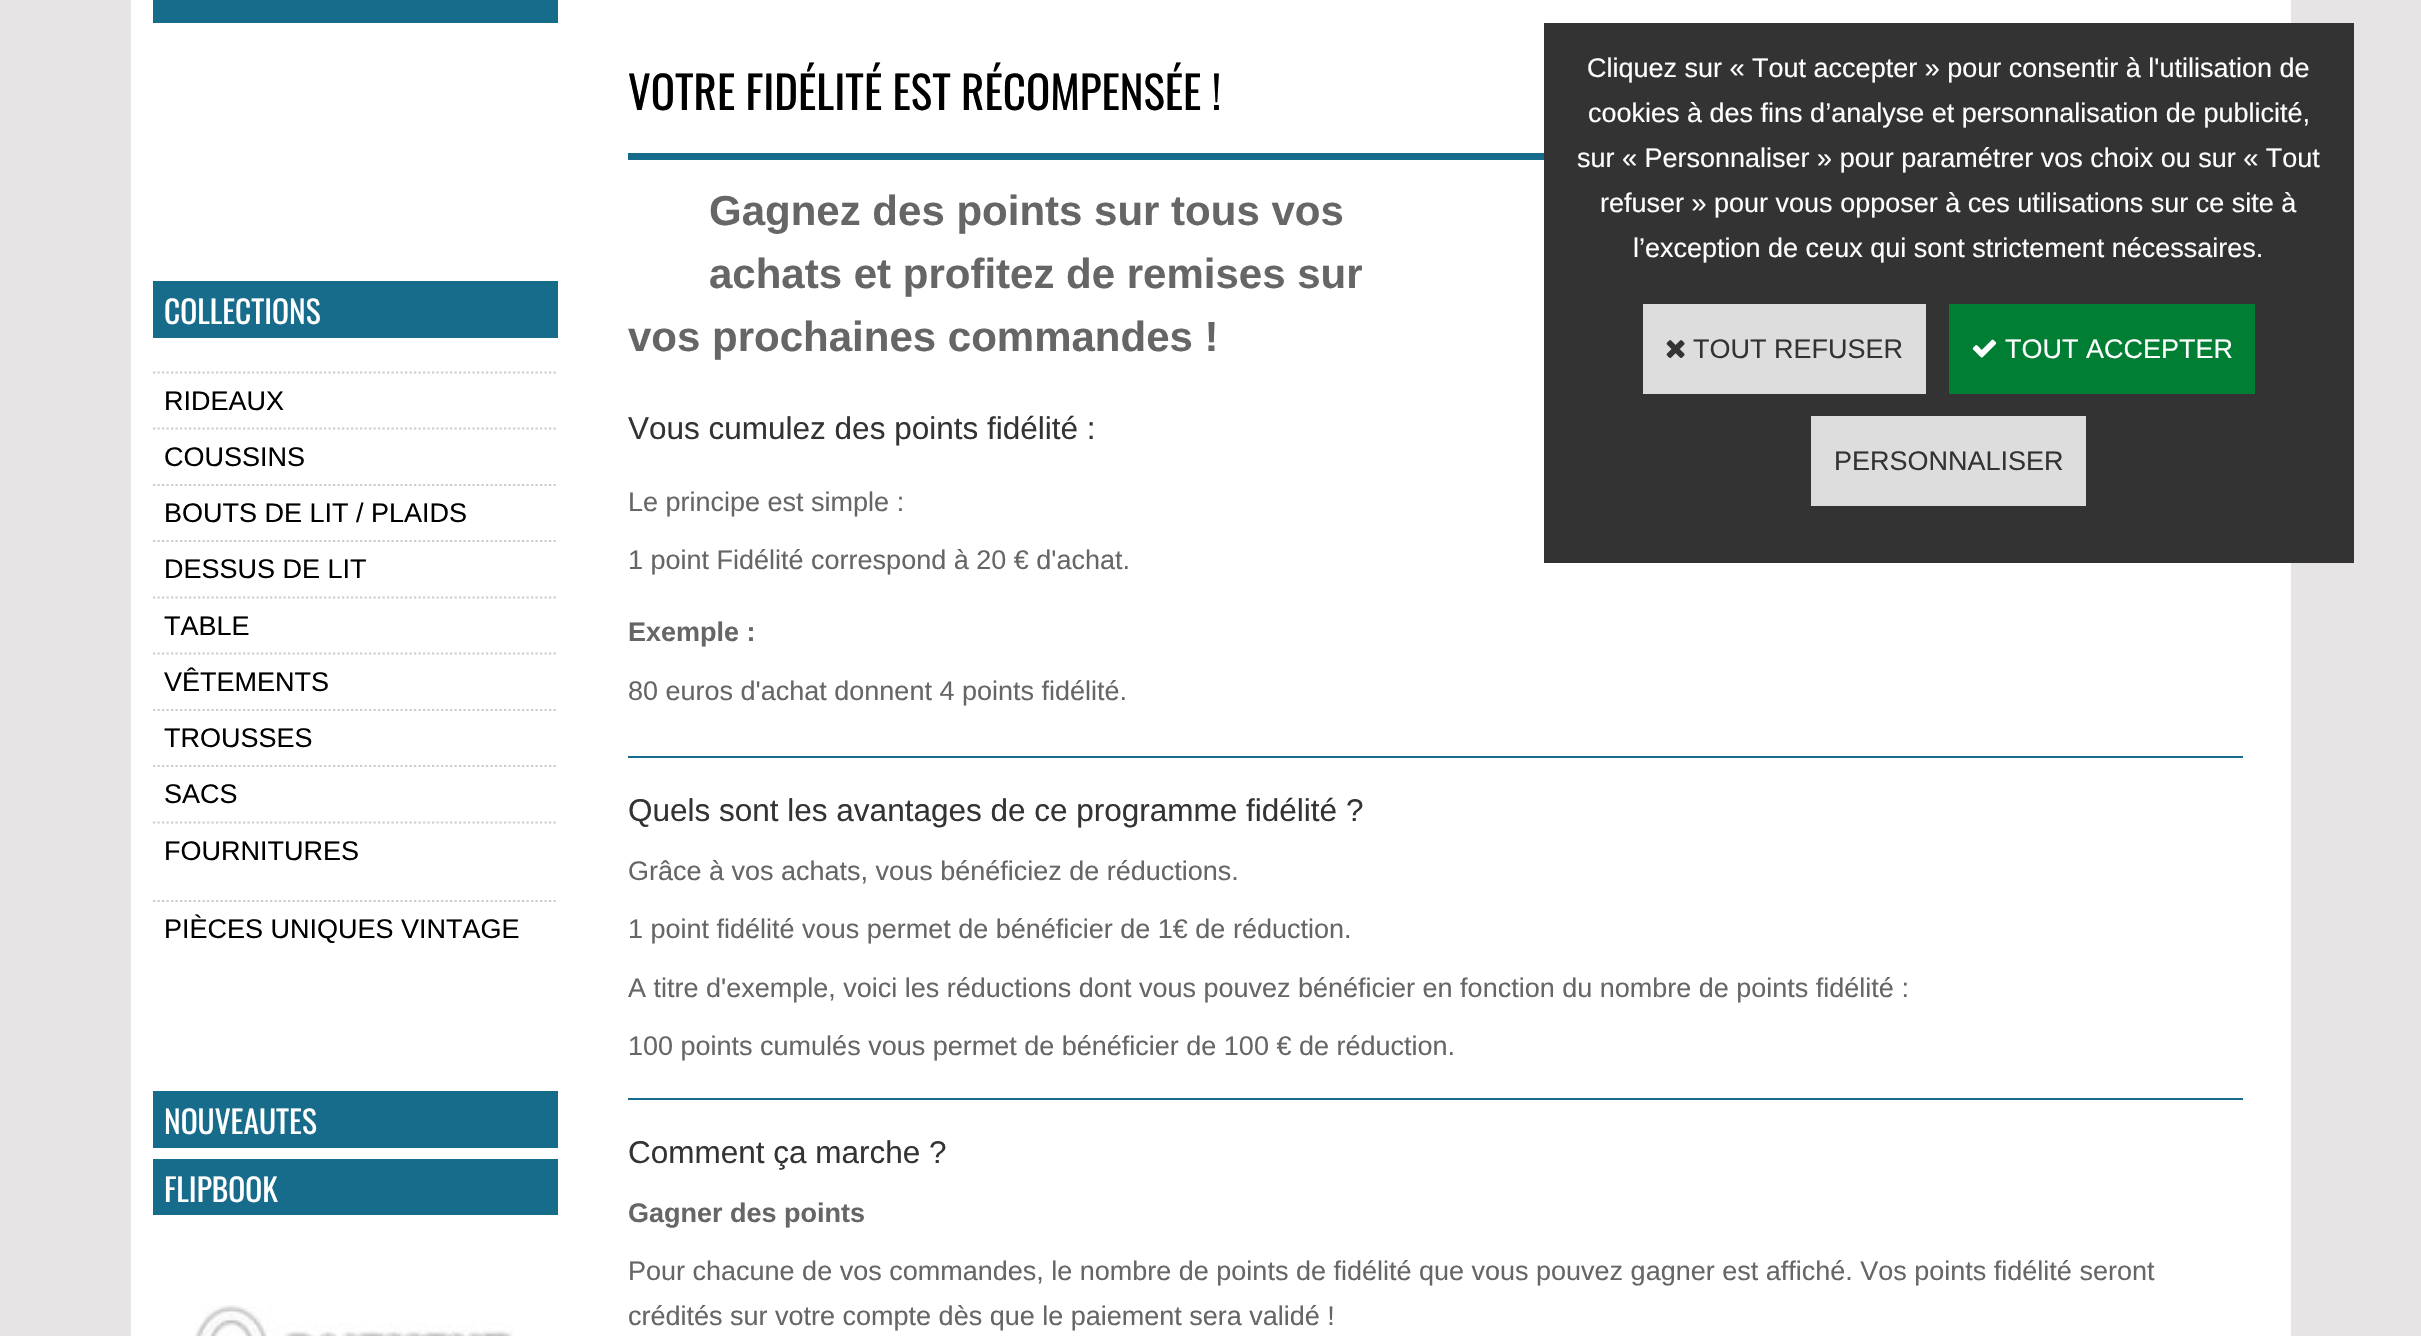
void draw(SkCanvas* canvas) {
	SkPaint fill;
	fill.setAntiAlias(true);
	auto makeFont = [&](const char* family, int weight, float size, bool italic = false) {
		SkFontStyle style(weight, SkFontStyle::kNormal_Width,
			italic ? SkFontStyle::kItalic_Slant : SkFontStyle::kUpright_Slant);
		SkFont result(fontMgr->matchFamilyStyle(family, style), size);
		result.setSubpixel(true);
		return result;
	};
	auto text = [&](const char* s, float x, float y, const SkFont& font) {
		canvas->drawString(s, x, y, font, fill);
	};
	auto box = [&](float l, float t, float r, float b) {
		canvas->drawRect(SkRect::MakeLTRB(l, t, r, b), fill);
	};
	auto picture = [&](const char* path, float l, float t, float r, float b) {
		auto image = SkImages::DeferredFromEncodedData(SkData::MakeFromFileName(path));
		canvas->drawImageRect(image, SkRect::MakeLTRB(l, t, r, b), SkSamplingOptions());
	};
	canvas->clear(0xFFE6E4E5);
	fill.setColor(0xFFFFFFFF);
	box(131, 0, 2291, 1336);
	fill.setColor(0xFF333333);
	box(1544, 23, 2354, 563);
	fill.setColor(0xFFDDDDDD);
	box(1643, 304, 1926, 394);
	picture("image0.png", 1666, 340, 1685, 358);
	fill.setColor(0xFF007E33);
	box(1949, 304, 2255, 394);
	picture("image1.png", 1972, 339, 1997, 358);
	fill.setColor(0xFFDDDDDD);
	box(1811, 416, 2086, 506);
	fill.setColor(0xFF176B8B);
	box(153, 0, 558, 23);
	box(153, 281, 558, 338);
	fill.setStyle(SkPaint::kStroke_Style);
	fill.setStrokeWidth(2.2f);
	fill.setColor(0xFFCCCCCC);
	fill.setPathEffect(SkDashPathEffect::Make({{2.25f, 2.25f}}, 0));
	canvas->drawPath(SkPathBuilder().moveTo(153, 372.5f).lineTo(558, 372.5f).detach(), fill);
	fill.setPathEffect(nullptr);
	fill.setPathEffect(SkDashPathEffect::Make({{2.25f, 2.25f}}, 0));
	canvas->drawPath(SkPathBuilder().moveTo(153, 428.5f).lineTo(558, 428.5f).detach(), fill);
	fill.setPathEffect(nullptr);
	fill.setPathEffect(SkDashPathEffect::Make({{2.25f, 2.25f}}, 0));
	canvas->drawPath(SkPathBuilder().moveTo(153, 485).lineTo(558, 485).detach(), fill);
	fill.setPathEffect(nullptr);
	fill.setPathEffect(SkDashPathEffect::Make({{2.25f, 2.25f}}, 0));
	canvas->drawPath(SkPathBuilder().moveTo(153, 541).lineTo(558, 541).detach(), fill);
	fill.setPathEffect(nullptr);
	fill.setPathEffect(SkDashPathEffect::Make({{2.25f, 2.25f}}, 0));
	canvas->drawPath(SkPathBuilder().moveTo(153, 597.5f).lineTo(558, 597.5f).detach(), fill);
	fill.setPathEffect(nullptr);
	fill.setPathEffect(SkDashPathEffect::Make({{2.25f, 2.25f}}, 0));
	canvas->drawPath(SkPathBuilder().moveTo(153, 653.5f).lineTo(558, 653.5f).detach(), fill);
	fill.setPathEffect(nullptr);
	fill.setPathEffect(SkDashPathEffect::Make({{2.25f, 2.25f}}, 0));
	canvas->drawPath(SkPathBuilder().moveTo(153, 710).lineTo(558, 710).detach(), fill);
	fill.setPathEffect(nullptr);
	fill.setPathEffect(SkDashPathEffect::Make({{2.25f, 2.25f}}, 0));
	canvas->drawPath(SkPathBuilder().moveTo(153, 766).lineTo(558, 766).detach(), fill);
	fill.setPathEffect(nullptr);
	fill.setPathEffect(SkDashPathEffect::Make({{2.25f, 2.25f}}, 0));
	canvas->drawPath(SkPathBuilder().moveTo(153, 822.5f).lineTo(558, 822.5f).detach(), fill);
	fill.setPathEffect(nullptr);
	fill.setPathEffect(SkDashPathEffect::Make({{2.25f, 2.25f}}, 0));
	canvas->drawPath(SkPathBuilder().moveTo(153, 901).lineTo(558, 901).detach(), fill);
	fill.setPathEffect(nullptr);
	fill.setStyle(SkPaint::kFill_Style);
	fill.setColor(0xFF176B8B);
	box(153, 1091, 558, 1148);
	box(153, 1159, 558, 1215);
	picture("image2.png", 195, 1305, 513, 1336);
	box(628, 153, 1544, 160);
	box(628, 756, 2243, 758);
	box(628, 1098, 2243, 1100);
	auto font1 = makeFont("Liberation Sans", 400, 27);
	fill.setColor(0xFFFFFFFF);
	text("Cliquez sur « Tout accepter » pour consentir à l'utilisation de", 1587, 77, font1);
	text("cookies à des fins d’analyse et personnalisation de publicité,", 1588, 122, font1);
	text("sur « Personnaliser » pour paramétrer vos choix ou sur « Tout", 1577, 167, font1);
	text("refuser » pour vous opposer à ces utilisations sur ce site à", 1600, 212, font1);
	text("l’exception de ceux qui sont strictement nécessaires.", 1633, 257, font1);
	fill.setColor(0xFF333333);
	text("TOUT REFUSER", 1693, 358, font1);
	fill.setColor(0xFFFFFFFF);
	text("TOUT ACCEPTER", 2005, 358, font1);
	fill.setColor(0xFF333333);
	text("PERSONNALISER", 1834, 470, font1);
	auto font2 = makeFont("Oswald", 400, 31.5f);
	fill.setColor(0xFFFFFFFF);
	text("COLLECTIONS", 164, 324, font2);
	fill.setColor(0xFF000000);
	text("RIDEAUX", 164, 410, font1);
	text("COUSSINS", 164, 466, font1);
	text("BOUTS DE LIT / PLAIDS", 164, 522, font1);
	text("DESSUS DE LIT", 164, 578, font1);
	text("TABLE", 164, 635, font1);
	text("VÊTEMENTS", 164, 691, font1);
	text("TROUSSES", 164, 747, font1);
	text("SACS", 164, 803, font1);
	text("FOURNITURES", 164, 860, font1);
	text("PIÈCES UNIQUES VINTAGE", 164, 938, font1);
	fill.setColor(0xFFFFFFFF);
	text("NOUVEAUTES", 164, 1134, font2);
	text("FLIPBOOK", 164, 1202, font2);
	auto font3 = makeFont("Oswald", 400, 45);
	fill.setColor(0xFF000000);
	text("VOTRE FIDÉLITÉ EST RÉCOMPENSÉE !", 628, 110, font3);
	auto font4 = makeFont("Liberation Sans", 700, 42);
	fill.setColor(0xFF666666);
	text("Gagnez des points sur tous vos", 709, 225, font4);
	text("achats et profitez de remises sur", 709, 288, font4);
	text("vos prochaines commandes !", 628, 351, font4);
	auto font5 = makeFont("Liberation Sans", 400, 31.5f);
	fill.setColor(0xFF333333);
	text("Vous cumulez des points fidélité :", 628, 439, font5);
	fill.setColor(0xFF666666);
	text("Le principe est simple :", 628, 511, font1);
	text("1 point Fidélité correspond à 20 € d'achat.", 628, 569, font1);
	auto font6 = makeFont("Liberation Sans", 700, 27);
	text("Exemple :", 628, 641, font6);
	text("80 euros d'achat donnent 4 points fidélité.", 628, 700, font1);
	fill.setColor(0xFF333333);
	text("Quels sont les avantages de ce programme fidélité ?", 628, 821, font5);
	fill.setColor(0xFF666666);
	text("Grâce à vos achats, vous bénéficiez de réductions.", 628, 880, font1);
	text("1 point fidélité vous permet de bénéficier de 1€ de réduction.", 628, 938, font1);
	text("A titre d'exemple, voici les réductions dont vous pouvez bénéficier en fonction du nombre de points fidélité :", 628, 997, font1);
	text("100 points cumulés vous permet de bénéficier de 100 € de réduction.", 628, 1055, font1);
	fill.setColor(0xFF333333);
	text("Comment ça marche ?", 628, 1163, font5);
	fill.setColor(0xFF666666);
	text("Gagner des points", 628, 1222, font6);
	text("Pour chacune de vos commandes, le nombre de points de fidélité que vous pouvez gagner est affiché. Vos points fidélité seront", 628, 1280, font1);
	text("crédités sur votre compte dès que le paiement sera validé !", 628, 1325, font1);
}
